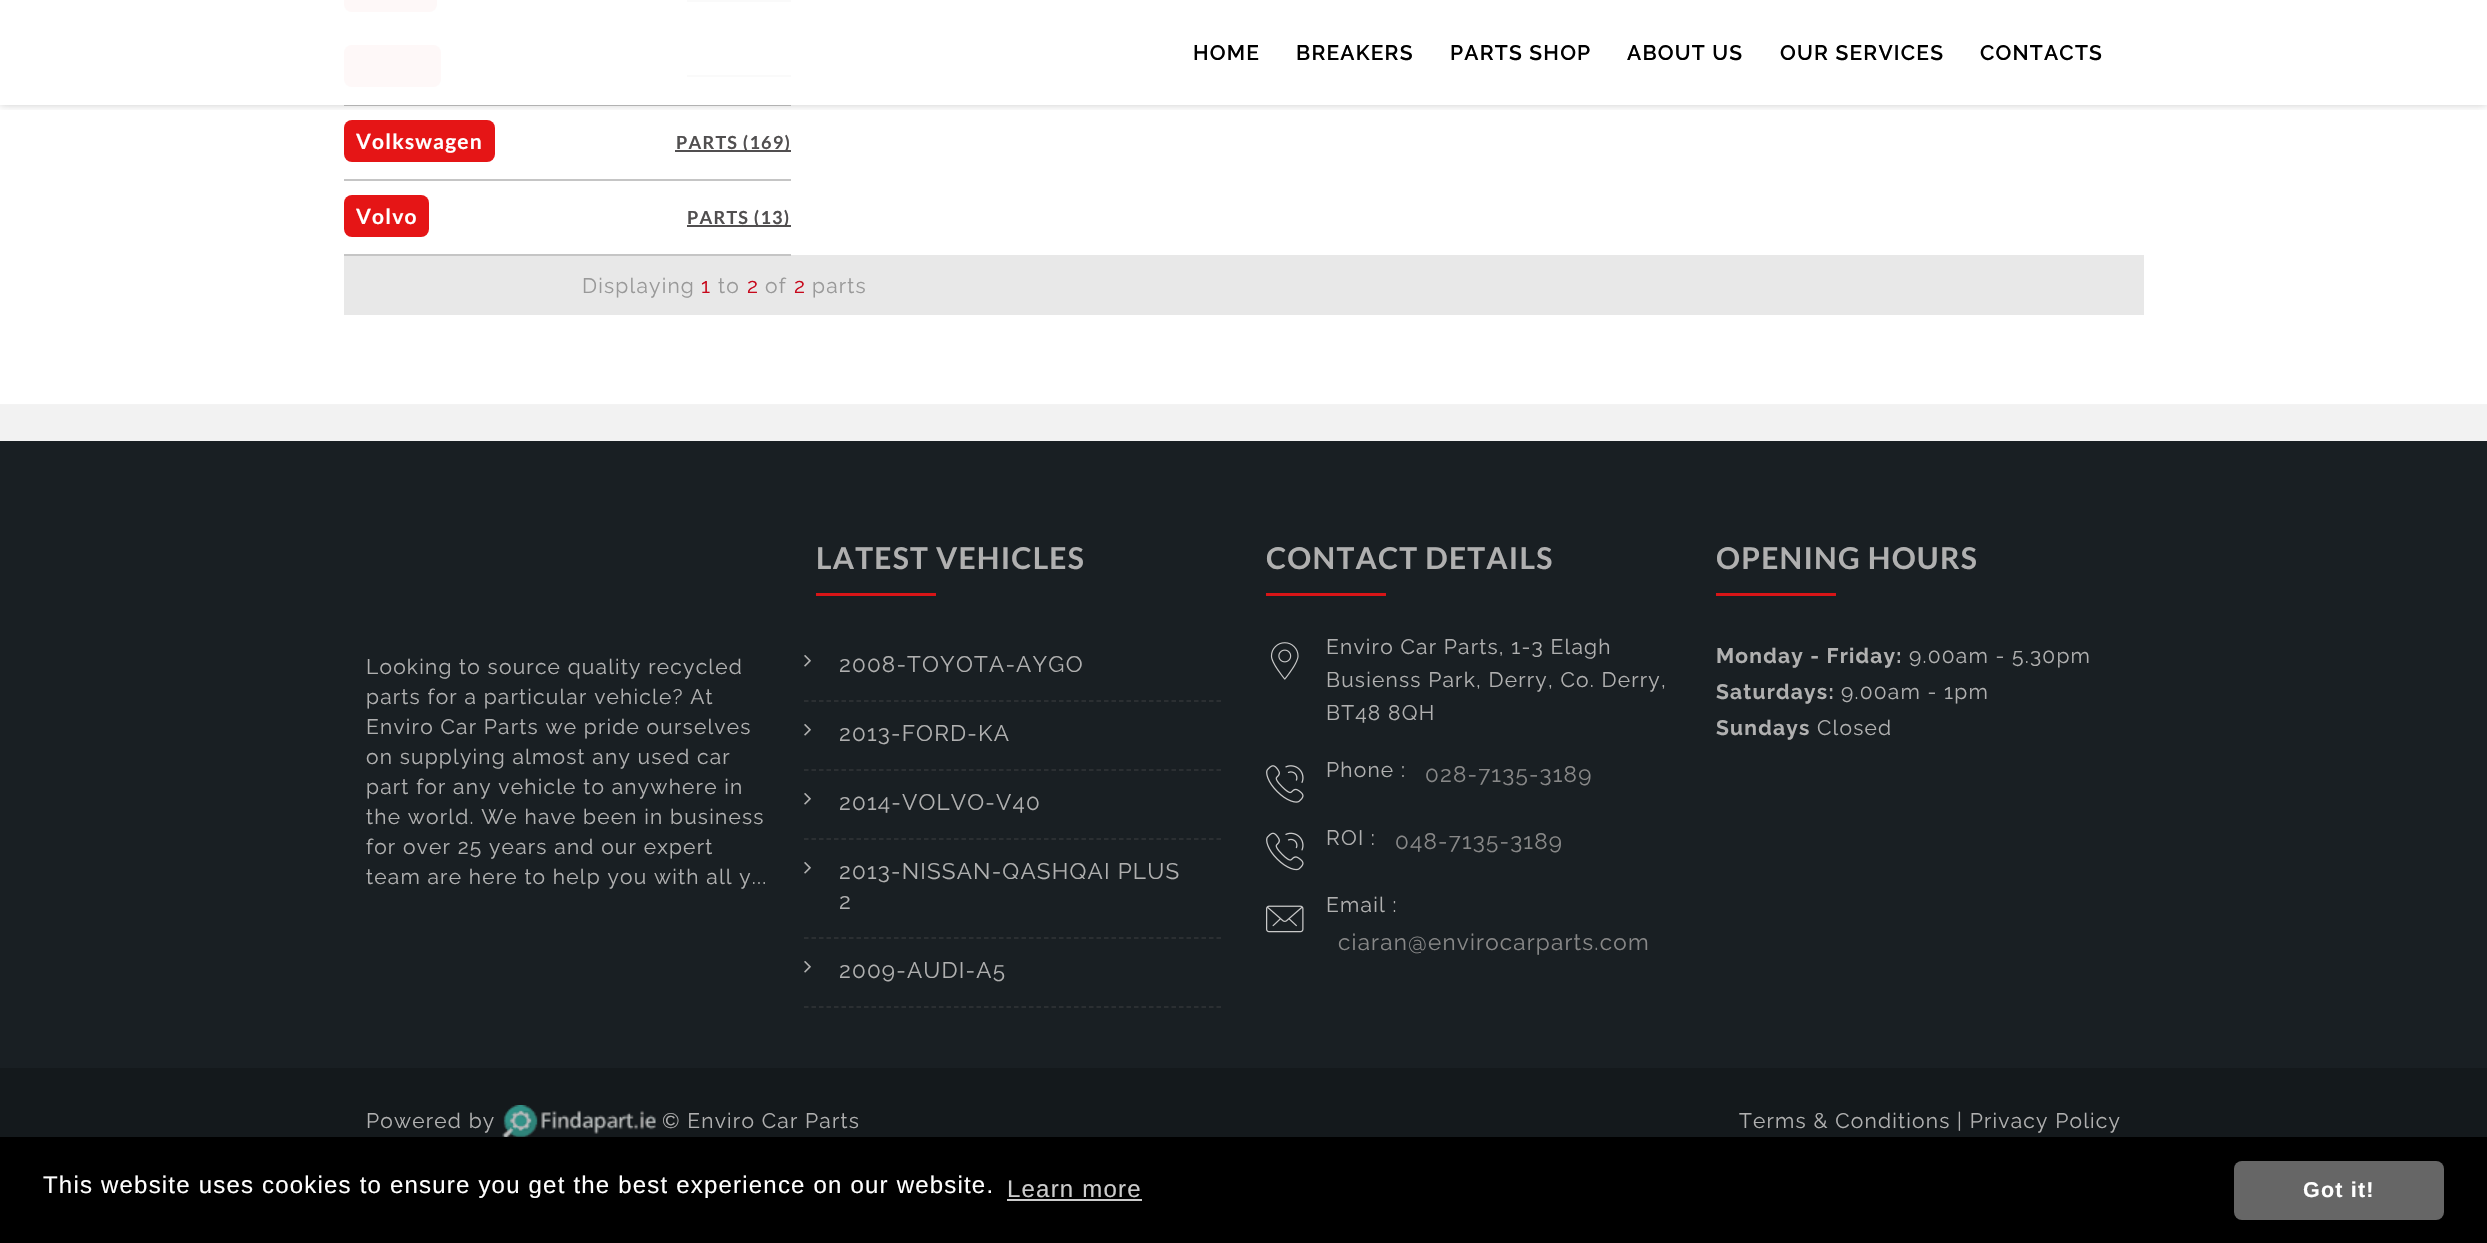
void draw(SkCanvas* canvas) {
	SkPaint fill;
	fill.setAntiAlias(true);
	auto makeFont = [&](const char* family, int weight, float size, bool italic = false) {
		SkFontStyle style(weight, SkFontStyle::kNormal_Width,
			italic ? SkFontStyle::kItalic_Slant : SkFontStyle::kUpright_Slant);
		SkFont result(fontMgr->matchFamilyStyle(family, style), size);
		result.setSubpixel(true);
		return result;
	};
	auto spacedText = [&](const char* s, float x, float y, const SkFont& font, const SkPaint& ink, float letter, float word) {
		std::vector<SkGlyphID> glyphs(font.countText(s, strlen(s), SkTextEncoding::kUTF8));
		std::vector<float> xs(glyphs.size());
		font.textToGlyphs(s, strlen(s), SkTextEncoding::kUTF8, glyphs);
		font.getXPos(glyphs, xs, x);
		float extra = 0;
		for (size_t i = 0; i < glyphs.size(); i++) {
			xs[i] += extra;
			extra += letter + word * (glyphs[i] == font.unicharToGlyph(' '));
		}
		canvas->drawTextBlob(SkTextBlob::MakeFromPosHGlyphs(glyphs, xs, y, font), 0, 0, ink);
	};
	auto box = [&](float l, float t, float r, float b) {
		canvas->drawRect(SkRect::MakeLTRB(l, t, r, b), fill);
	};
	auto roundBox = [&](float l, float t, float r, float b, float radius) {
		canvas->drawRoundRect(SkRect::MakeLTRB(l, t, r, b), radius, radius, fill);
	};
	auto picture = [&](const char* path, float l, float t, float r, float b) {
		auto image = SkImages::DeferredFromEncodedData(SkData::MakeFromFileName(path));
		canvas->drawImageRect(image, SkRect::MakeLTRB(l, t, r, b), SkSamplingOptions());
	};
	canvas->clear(0xFFFFFFFF);
	fill.setColor(0xFFFEF8F8);
	roundBox(344, -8, 437, 12, 8);
	fill.setColor(0xFFFAFAFA);
	box(687, 0, 791, 2);
	fill.setColor(0xFFC5C5C5);
	box(344, 105, 791, 106);
	fill.setColor(0xFFFEF8F8);
	roundBox(344, 45, 441, 87, 8);
	fill.setColor(0xFFFAFAFA);
	box(687, 75, 791, 77);
	canvas->save();
	canvas->clipRect(SkRect::MakeLTRB(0, 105, 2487, 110));
	fill.setColor(0x33000000);
	fill.setMaskFilter(SkMaskFilter::MakeBlur(kNormal_SkBlurStyle, 4));
	canvas->drawRect(SkRect::MakeLTRB(0, 0, 2487, 105), fill);
	fill.setMaskFilter(nullptr);
	canvas->restore();
	fill.setColor(0xFFC5C5C5);
	box(344, 179, 791, 181);
	fill.setColor(0xFFE51516);
	roundBox(344, 120, 495, 162, 8);
	fill.setColor(0xFF514F50);
	box(675, 150, 791, 152);
	fill.setColor(0xFFE8E8E8);
	box(344, 255, 2144, 315);
	fill.setColor(0xFFC5C5C5);
	box(344, 254, 791, 256);
	fill.setColor(0xFFE51516);
	roundBox(344, 195, 429, 237, 8);
	fill.setColor(0xFF514F50);
	box(687, 225, 791, 227);
	picture("image0.png", 0, 404, 2487, 441);
	fill.setColor(0xFF191F23);
	box(0, 441, 2487, 1068);
	fill.setColor(0xFFD81517);
	box(816, 593, 936, 596);
	fill.setStyle(SkPaint::kStroke_Style);
	fill.setStrokeWidth(1.5f);
	fill.setColor(0xFF303437);
	fill.setPathEffect(SkDashPathEffect::Make({{4.5f, 3}}, 0));
	canvas->drawPath(SkPathBuilder().moveTo(804, 701).lineTo(1221, 701).detach(), fill);
	fill.setPathEffect(nullptr);
	picture("image1.png", 804, 655, 811, 667);
	fill.setPathEffect(SkDashPathEffect::Make({{4.5f, 3}}, 0));
	canvas->drawPath(SkPathBuilder().moveTo(804, 770).lineTo(1221, 770).detach(), fill);
	fill.setPathEffect(nullptr);
	picture("image1.png", 804, 724, 811, 736);
	fill.setPathEffect(SkDashPathEffect::Make({{4.5f, 3}}, 0));
	canvas->drawPath(SkPathBuilder().moveTo(804, 839).lineTo(1221, 839).detach(), fill);
	fill.setPathEffect(nullptr);
	picture("image1.png", 804, 793, 811, 805);
	fill.setPathEffect(SkDashPathEffect::Make({{4.5f, 3}}, 0));
	canvas->drawPath(SkPathBuilder().moveTo(804, 938).lineTo(1221, 938).detach(), fill);
	fill.setPathEffect(nullptr);
	picture("image1.png", 804, 862, 811, 874);
	fill.setPathEffect(SkDashPathEffect::Make({{4.5f, 3}}, 0));
	canvas->drawPath(SkPathBuilder().moveTo(804, 1007).lineTo(1221, 1007).detach(), fill);
	fill.setPathEffect(nullptr);
	picture("image1.png", 804, 961, 811, 973);
	fill.setStyle(SkPaint::kFill_Style);
	fill.setColor(0xFFD81517);
	box(1266, 593, 1386, 596);
	picture("image2.png", 1270, 642, 1299, 680);
	picture("image3.png", 1266, 765, 1304, 803);
	picture("image4.png", 1266, 832, 1304, 871);
	picture("image5.png", 1266, 905, 1304, 933);
	box(1716, 593, 1836, 596);
	fill.setColor(0xFF14191C);
	box(0, 1068, 2487, 1137);
	picture("image6.png", 502, 1105, 656, 1137);
	fill.setColor(0xFF000000);
	box(0, 1137, 2487, 1243);
	fill.setColor(0xFFCCCCCC);
	box(1007, 1199, 1142, 1201);
	fill.setColor(0xFF666666);
	roundBox(2234, 1161, 2444, 1220, 8);
	auto font1 = makeFont("Raleway", 600, 21);
	fill.setColor(0xFF000000);
	spacedText("HOME", 1193, 60, font1, fill, 1.2f, 0);
	spacedText("BREAKERS", 1296, 60, font1, fill, 1.2f, 0);
	spacedText("PARTS SHOP", 1450, 60, font1, fill, 1.2f, 0);
	spacedText("ABOUT US", 1627, 60, font1, fill, 1.2f, 0);
	spacedText("OUR SERVICES", 1780, 60, font1, fill, 1.2f, 0);
	spacedText("CONTACTS", 1980, 60, font1, fill, 1.2f, 0);
	auto font2 = makeFont("Lato", 700, 21);
	fill.setColor(0xFFFFFFFF);
	spacedText("Volkswagen", 356, 149, font2, fill, 1.2f, 0);
	auto font3 = makeFont("Lato", 700, 18);
	fill.setColor(0xFF514F50);
	spacedText("PARTS (169)", 676, 149, font3, fill, 1.2f, 0);
	fill.setColor(0xFFFFFFFF);
	spacedText("Volvo", 356, 224, font2, fill, 1.2f, 0);
	fill.setColor(0xFF514F50);
	spacedText("PARTS (13)", 687, 224, font3, fill, 1.2f, 0);
	auto font4 = makeFont("Raleway", 400, 21);
	fill.setColor(0xFF999999);
	spacedText("Displaying", 582, 293, font4, fill, 1.2f, 0);
	fill.setColor(0xFFC7081B);
	spacedText("1", 701, 293, font4, fill, 1.2f, 0);
	fill.setColor(0xFF999999);
	spacedText("to", 718, 293, font4, fill, 1.2f, 0);
	fill.setColor(0xFFC7081B);
	spacedText("2", 747, 293, font4, fill, 1.2f, 0);
	fill.setColor(0xFF999999);
	spacedText("of", 765, 293, font4, fill, 1.2f, 0);
	fill.setColor(0xFFC7081B);
	spacedText("2", 794, 293, font4, fill, 1.2f, 0);
	fill.setColor(0xFF999999);
	spacedText("parts", 812, 293, font4, fill, 1.2f, 0);
	fill.setColor(0xFFB0B0B0);
	spacedText("Looking to source quality recycled", 366, 674, font4, fill, 1.2f, 0);
	spacedText("parts for a particular vehicle? At", 366, 704, font4, fill, 1.2f, 0);
	spacedText("Enviro Car Parts we pride ourselves", 366, 734, font4, fill, 1.2f, 0);
	spacedText("on supplying almost any used car", 366, 764, font4, fill, 1.2f, 0);
	spacedText("part for any vehicle to anywhere in", 366, 794, font4, fill, 1.2f, 0);
	spacedText("the world. We have been in business", 366, 824, font4, fill, 1.2f, 0);
	spacedText("for over 25 years and our expert", 366, 854, font4, fill, 1.2f, 0);
	spacedText("team are here to help you with all y...", 366, 884, font4, fill, 1.2f, 0);
	auto font5 = makeFont("Lato", 700, 30);
	spacedText("LATEST VEHICLES", 816, 569, font5, fill, 1.2f, 0);
	auto font6 = makeFont("Raleway", 400, 22.5f);
	spacedText("2008-TOYOTA-AYGO", 839, 672, font6, fill, 1.2f, 0);
	spacedText("2013-FORD-KA", 839, 741, font6, fill, 1.2f, 0);
	spacedText("2014-VOLVO-V40", 839, 810, font6, fill, 1.2f, 0);
	spacedText("2013-NISSAN-QASHQAI PLUS", 839, 879, font6, fill, 1.2f, 0);
	spacedText("2", 839, 909, font6, fill, 1.2f, 0);
	spacedText("2009-AUDI-A5", 839, 978, font6, fill, 1.2f, 0);
	spacedText("CONTACT DETAILS", 1266, 569, font5, fill, 1.2f, 0);
	spacedText("Enviro Car Parts, 1-3 Elagh", 1326, 654, font4, fill, 1.2f, 0);
	spacedText("Busienss Park, Derry, Co. Derry,", 1326, 687, font4, fill, 1.2f, 0);
	spacedText("BT48 8QH", 1326, 720, font4, fill, 1.2f, 0);
	spacedText("Phone :", 1326, 777, font4, fill, 1.2f, 0);
	fill.setColor(0xFF888888);
	spacedText("028-7135-3189", 1425, 782, font6, fill, 1.2f, 0);
	fill.setColor(0xFFB0B0B0);
	spacedText("ROI :", 1326, 845, font4, fill, 1.2f, 0);
	fill.setColor(0xFF888888);
	spacedText("048-7135-3189", 1395, 849, font6, fill, 1.2f, 0);
	fill.setColor(0xFFB0B0B0);
	spacedText("Email :", 1326, 912, font4, fill, 1.2f, 0);
	fill.setColor(0xFF888888);
	spacedText("ciaran@envirocarparts.com", 1338, 950, font6, fill, 1.2f, 0);
	fill.setColor(0xFFB0B0B0);
	spacedText("OPENING HOURS", 1716, 569, font5, fill, 1.2f, 0);
	auto font7 = makeFont("Raleway", 700, 21);
	spacedText("Monday - Friday:", 1716, 663, font7, fill, 1.2f, 0);
	spacedText("9.00am - 5.30pm", 1909, 663, font4, fill, 1.2f, 0);
	spacedText("Saturdays:", 1716, 699, font7, fill, 1.2f, 0);
	spacedText("9.00am - 1pm", 1841, 699, font4, fill, 1.2f, 0);
	spacedText("Sundays", 1716, 735, font7, fill, 1.2f, 0);
	spacedText("Closed", 1817, 735, font4, fill, 1.2f, 0);
	spacedText("Powered by", 366, 1128, font4, fill, 1.2f, 0);
	spacedText("© Enviro Car Parts", 662, 1128, font4, fill, 1.2f, 0);
	spacedText("Terms & Conditions | Privacy Policy", 1739, 1128, font4, fill, 1.2f, 0);
	auto font8 = makeFont("Liberation Sans", 400, 24);
	fill.setColor(0xFFFFFFFF);
	spacedText("This website uses cookies to ensure you get the best experience on our website.", 43, 1193, font8, fill, 1.2f, 0);
	fill.setColor(0xFFCCCCCC);
	spacedText("Learn more", 1007, 1197, font8, fill, 1.2f, 0);
	auto font9 = makeFont("Liberation Sans", 700, 21.5f);
	fill.setColor(0xFFFFFFFF);
	spacedText("Got it!", 2303, 1197, font9, fill, 1.2f, 0);
}
